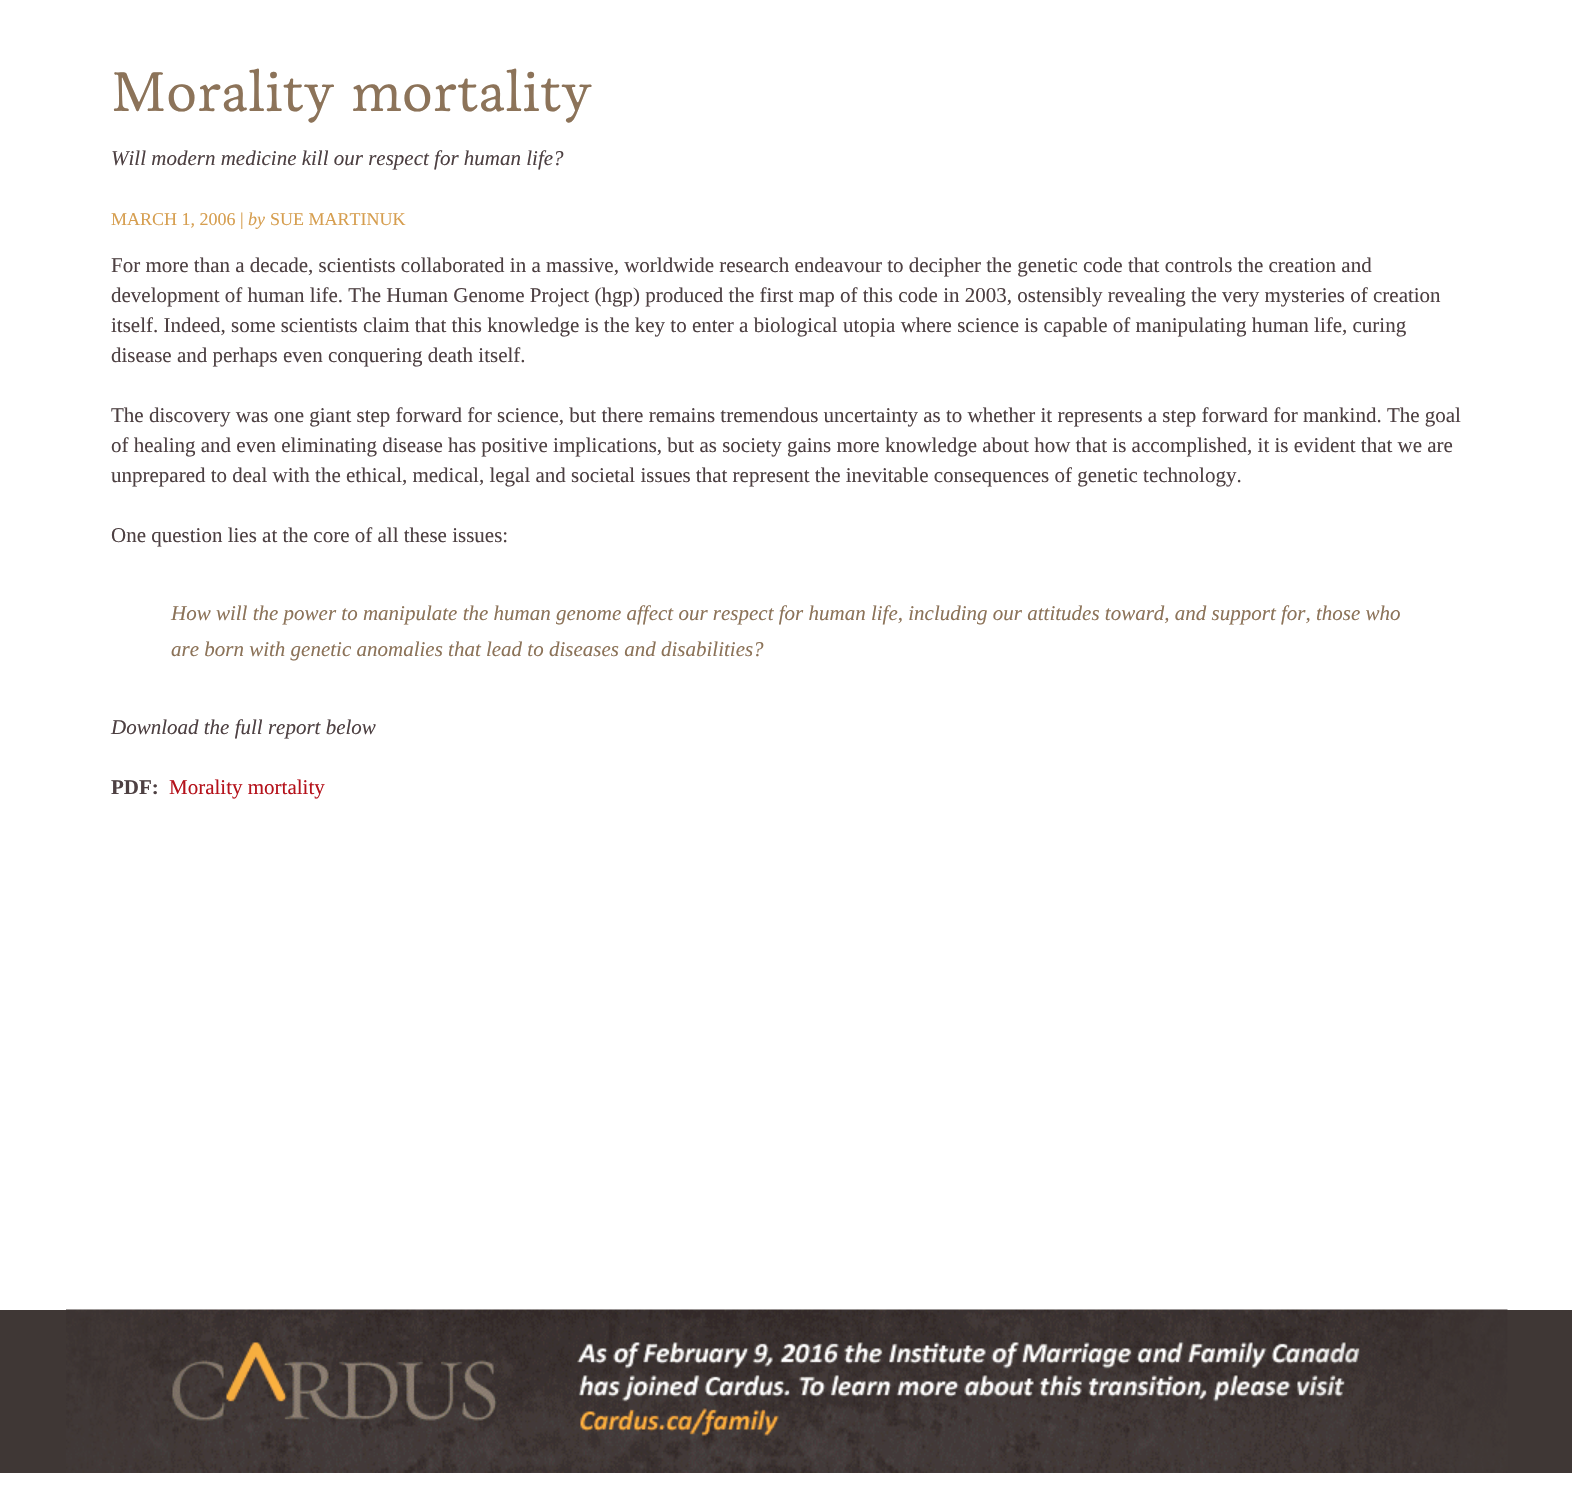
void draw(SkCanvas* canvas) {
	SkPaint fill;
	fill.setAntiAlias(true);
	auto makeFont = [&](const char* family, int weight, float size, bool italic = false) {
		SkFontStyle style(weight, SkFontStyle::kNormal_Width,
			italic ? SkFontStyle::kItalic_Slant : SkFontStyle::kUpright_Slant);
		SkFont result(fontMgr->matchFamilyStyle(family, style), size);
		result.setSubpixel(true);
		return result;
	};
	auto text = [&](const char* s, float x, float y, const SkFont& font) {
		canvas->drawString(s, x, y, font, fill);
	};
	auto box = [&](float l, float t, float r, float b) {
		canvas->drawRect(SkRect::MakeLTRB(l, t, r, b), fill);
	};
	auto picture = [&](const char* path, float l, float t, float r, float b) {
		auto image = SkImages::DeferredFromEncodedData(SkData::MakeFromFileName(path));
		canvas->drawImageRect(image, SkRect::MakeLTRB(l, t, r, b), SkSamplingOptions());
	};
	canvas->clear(0xFFFFFFFF);
	fill.setColor(0xFF3F3735);
	box(0, 1310, 1572, 1473);
	picture("image0.png", 66, 1309, 1508, 1473);
	auto font1 = makeFont("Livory", 400, 57);
	fill.setColor(0xFF8C7359);
	text("Morality mortality", 111, 111, font1);
	auto font2 = makeFont("Liberation Serif", 400, 21, true);
	fill.setColor(0xFF4D4042);
	text("Will modern medicine kill our respect for human life?", 111, 165, font2);
	auto font3 = makeFont("Liberation Serif", 400, 18);
	fill.setColor(0xFFD69E4F);
	text("MARCH 1, 2006 |", 111, 225, font3);
	auto font4 = makeFont("Liberation Serif", 400, 18, true);
	text("by", 248, 225, font4);
	text("SUE MARTINUK", 270, 225, font3);
	auto font5 = makeFont("Liberation Serif", 400, 21);
	fill.setColor(0xFF4D4042);
	text("For more than a decade, scientists collaborated in a massive, worldwide research endeavour to decipher the genetic code that controls the creation and", 111, 272, font5);
	text("development of human life. The Human Genome Project (hgp) produced the first map of this code in 2003, ostensibly revealing the very mysteries of creation", 111, 302, font5);
	text("itself. Indeed, some scientists claim that this knowledge is the key to enter a biological utopia where science is capable of manipulating human life, curing", 111, 332, font5);
	text("disease and perhaps even conquering death itself.", 111, 362, font5);
	text("The discovery was one giant step forward for science, but there remains tremendous uncertainty as to whether it represents a step forward for mankind. The goal", 111, 422, font5);
	text("of healing and even eliminating disease has positive implications, but as society gains more knowledge about how that is accomplished, it is evident that we are", 111, 452, font5);
	text("unprepared to deal with the ethical, medical, legal and societal issues that represent the inevitable consequences of genetic technology.", 111, 482, font5);
	text("One question lies at the core of all these issues:", 111, 542, font5);
	fill.setColor(0xFF8C7359);
	text("How will the power to manipulate the human genome affect our respect for human life, including our attitudes toward, and support for, those who", 171, 620, font2);
	text("are born with genetic anomalies that lead to diseases and disabilities?", 171, 656, font2);
	fill.setColor(0xFF4D4042);
	text("Download the full report below", 111, 734, font2);
	auto font6 = makeFont("Liberation Serif", 700, 21);
	text("PDF:", 111, 794, font6);
	fill.setColor(0xFFB5121B);
	text("Morality mortality", 169, 794, font5);
}
